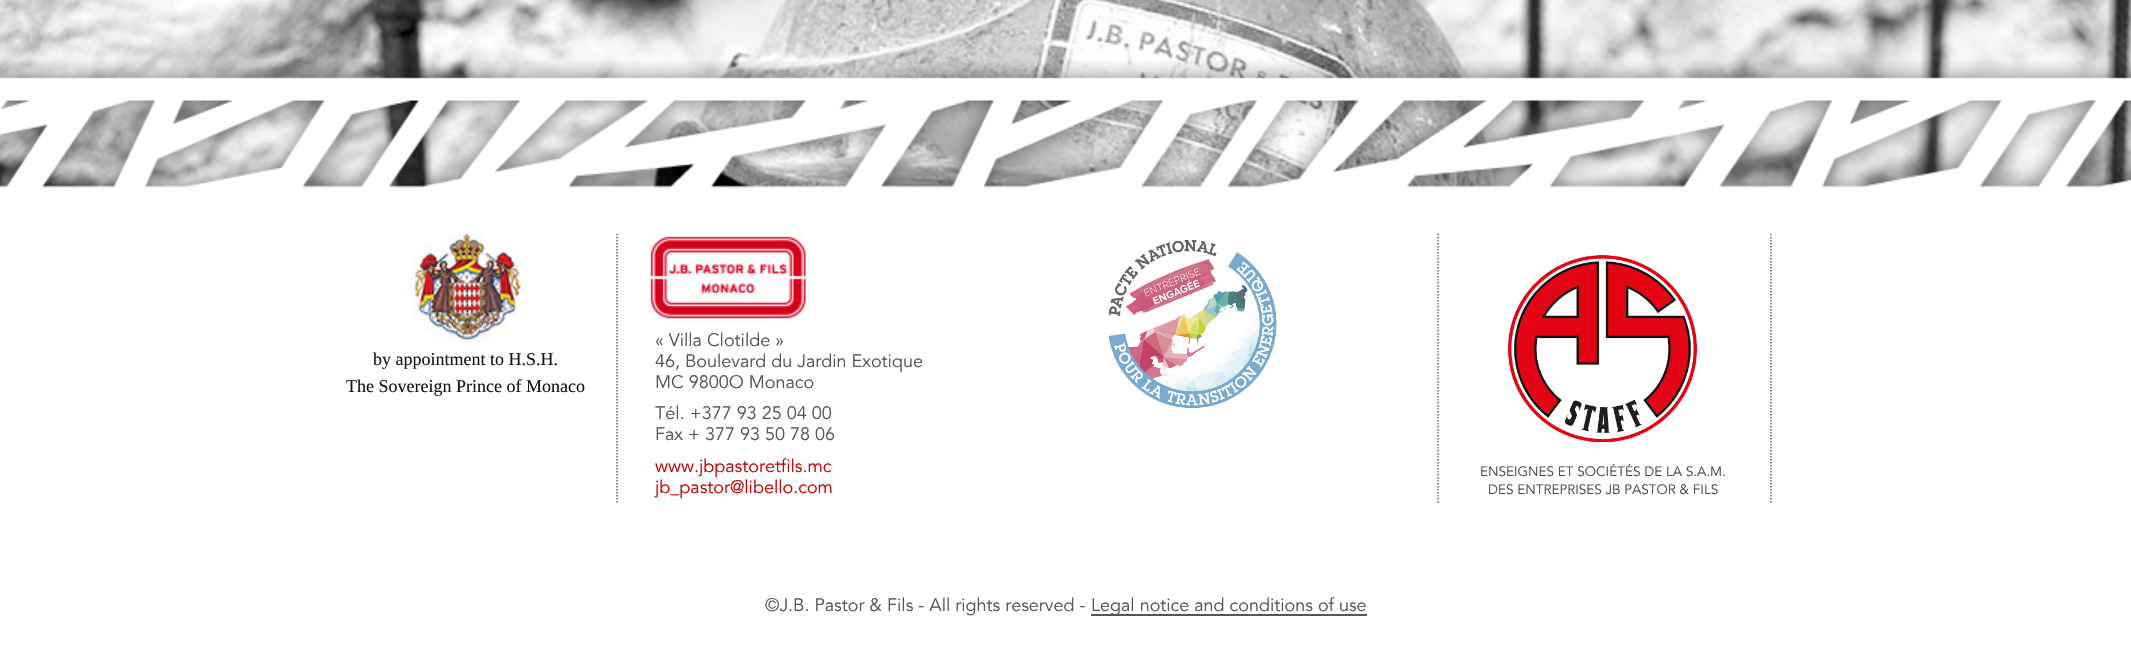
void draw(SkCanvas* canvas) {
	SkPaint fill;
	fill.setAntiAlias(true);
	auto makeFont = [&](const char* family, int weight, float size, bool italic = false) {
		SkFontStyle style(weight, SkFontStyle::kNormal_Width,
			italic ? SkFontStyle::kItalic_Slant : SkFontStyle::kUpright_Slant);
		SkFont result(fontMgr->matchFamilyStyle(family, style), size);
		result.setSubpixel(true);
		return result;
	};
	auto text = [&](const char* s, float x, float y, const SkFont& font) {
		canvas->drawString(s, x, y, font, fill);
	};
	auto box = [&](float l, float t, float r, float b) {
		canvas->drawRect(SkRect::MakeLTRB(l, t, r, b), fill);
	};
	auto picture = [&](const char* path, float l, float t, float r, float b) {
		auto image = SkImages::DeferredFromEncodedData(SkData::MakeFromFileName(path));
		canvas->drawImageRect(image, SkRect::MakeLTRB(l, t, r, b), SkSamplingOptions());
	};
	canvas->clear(0xFFFFFFFF);
	picture("image0.png", 0, 0, 2131, 188);
	picture("image1.png", 0, 61, 2131, 654);
	picture("image2.png", 411, 234, 531, 342);
	fill.setStyle(SkPaint::kStroke_Style);
	fill.setStrokeWidth(1.5f);
	fill.setColor(0xFF666666);
	fill.setPathEffect(SkDashPathEffect::Make({{1.5f, 1.5f}}, 0));
	canvas->drawPath(SkPathBuilder().moveTo(617, 234).lineTo(617, 504).detach(), fill);
	fill.setPathEffect(nullptr);
	picture("image3.png", 648, 234, 808, 319);
	picture("image4.png", 1108, 239, 1277, 409);
	fill.setPathEffect(SkDashPathEffect::Make({{1.5f, 1.5f}}, 0));
	canvas->drawPath(SkPathBuilder().moveTo(1438, 234).lineTo(1438, 504).detach(), fill);
	fill.setPathEffect(nullptr);
	fill.setPathEffect(SkDashPathEffect::Make({{1.5f, 1.5f}}, 0));
	canvas->drawPath(SkPathBuilder().moveTo(1771, 234).lineTo(1771, 504).detach(), fill);
	fill.setPathEffect(nullptr);
	picture("image5.png", 1508, 255, 1697, 443);
	fill.setStyle(SkPaint::kFill_Style);
	fill.setColor(0xFF555656);
	box(1091, 614, 1367, 616);
	auto font1 = makeFont("Liberation Serif", 400, 18);
	fill.setColor(0xFF141412);
	text("by appointment to H.S.H.", 373, 365, font1);
	text("The Sovereign Prince of Monaco", 346, 392, font1);
	auto font2 = makeFont("Avenir", 400, 18);
	fill.setColor(0xFF555555);
	text("« Villa Clotilde »", 655, 346, font2);
	text("46, Boulevard du Jardin Exotique", 655, 367, font2);
	text("MC 9800O Monaco", 655, 388, font2);
	text("Tél. +377 93 25 04 00", 655, 419, font2);
	text("Fax + 377 93 50 78 06", 655, 440, font2);
	fill.setColor(0xFFCC0000);
	text("www.jbpastoretfils.mc", 655, 472, font2);
	text("jb_pastor@libello.com", 655, 493, font2);
	auto font3 = makeFont("Avenir", 400, 13.5f);
	fill.setColor(0xFF464F4E);
	text("ENSEIGNES ET SOCIÉTÉS DE LA S.A.M.", 1480, 476, font3);
	text("DES ENTREPRISES JB PASTOR & FILS", 1488, 494, font3);
	fill.setColor(0xFF555555);
	text("©J.B. Pastor & Fils - All rights reserved -", 765, 611, font2);
	text("Legal notice and conditions of use", 1091, 611, font2);
}
